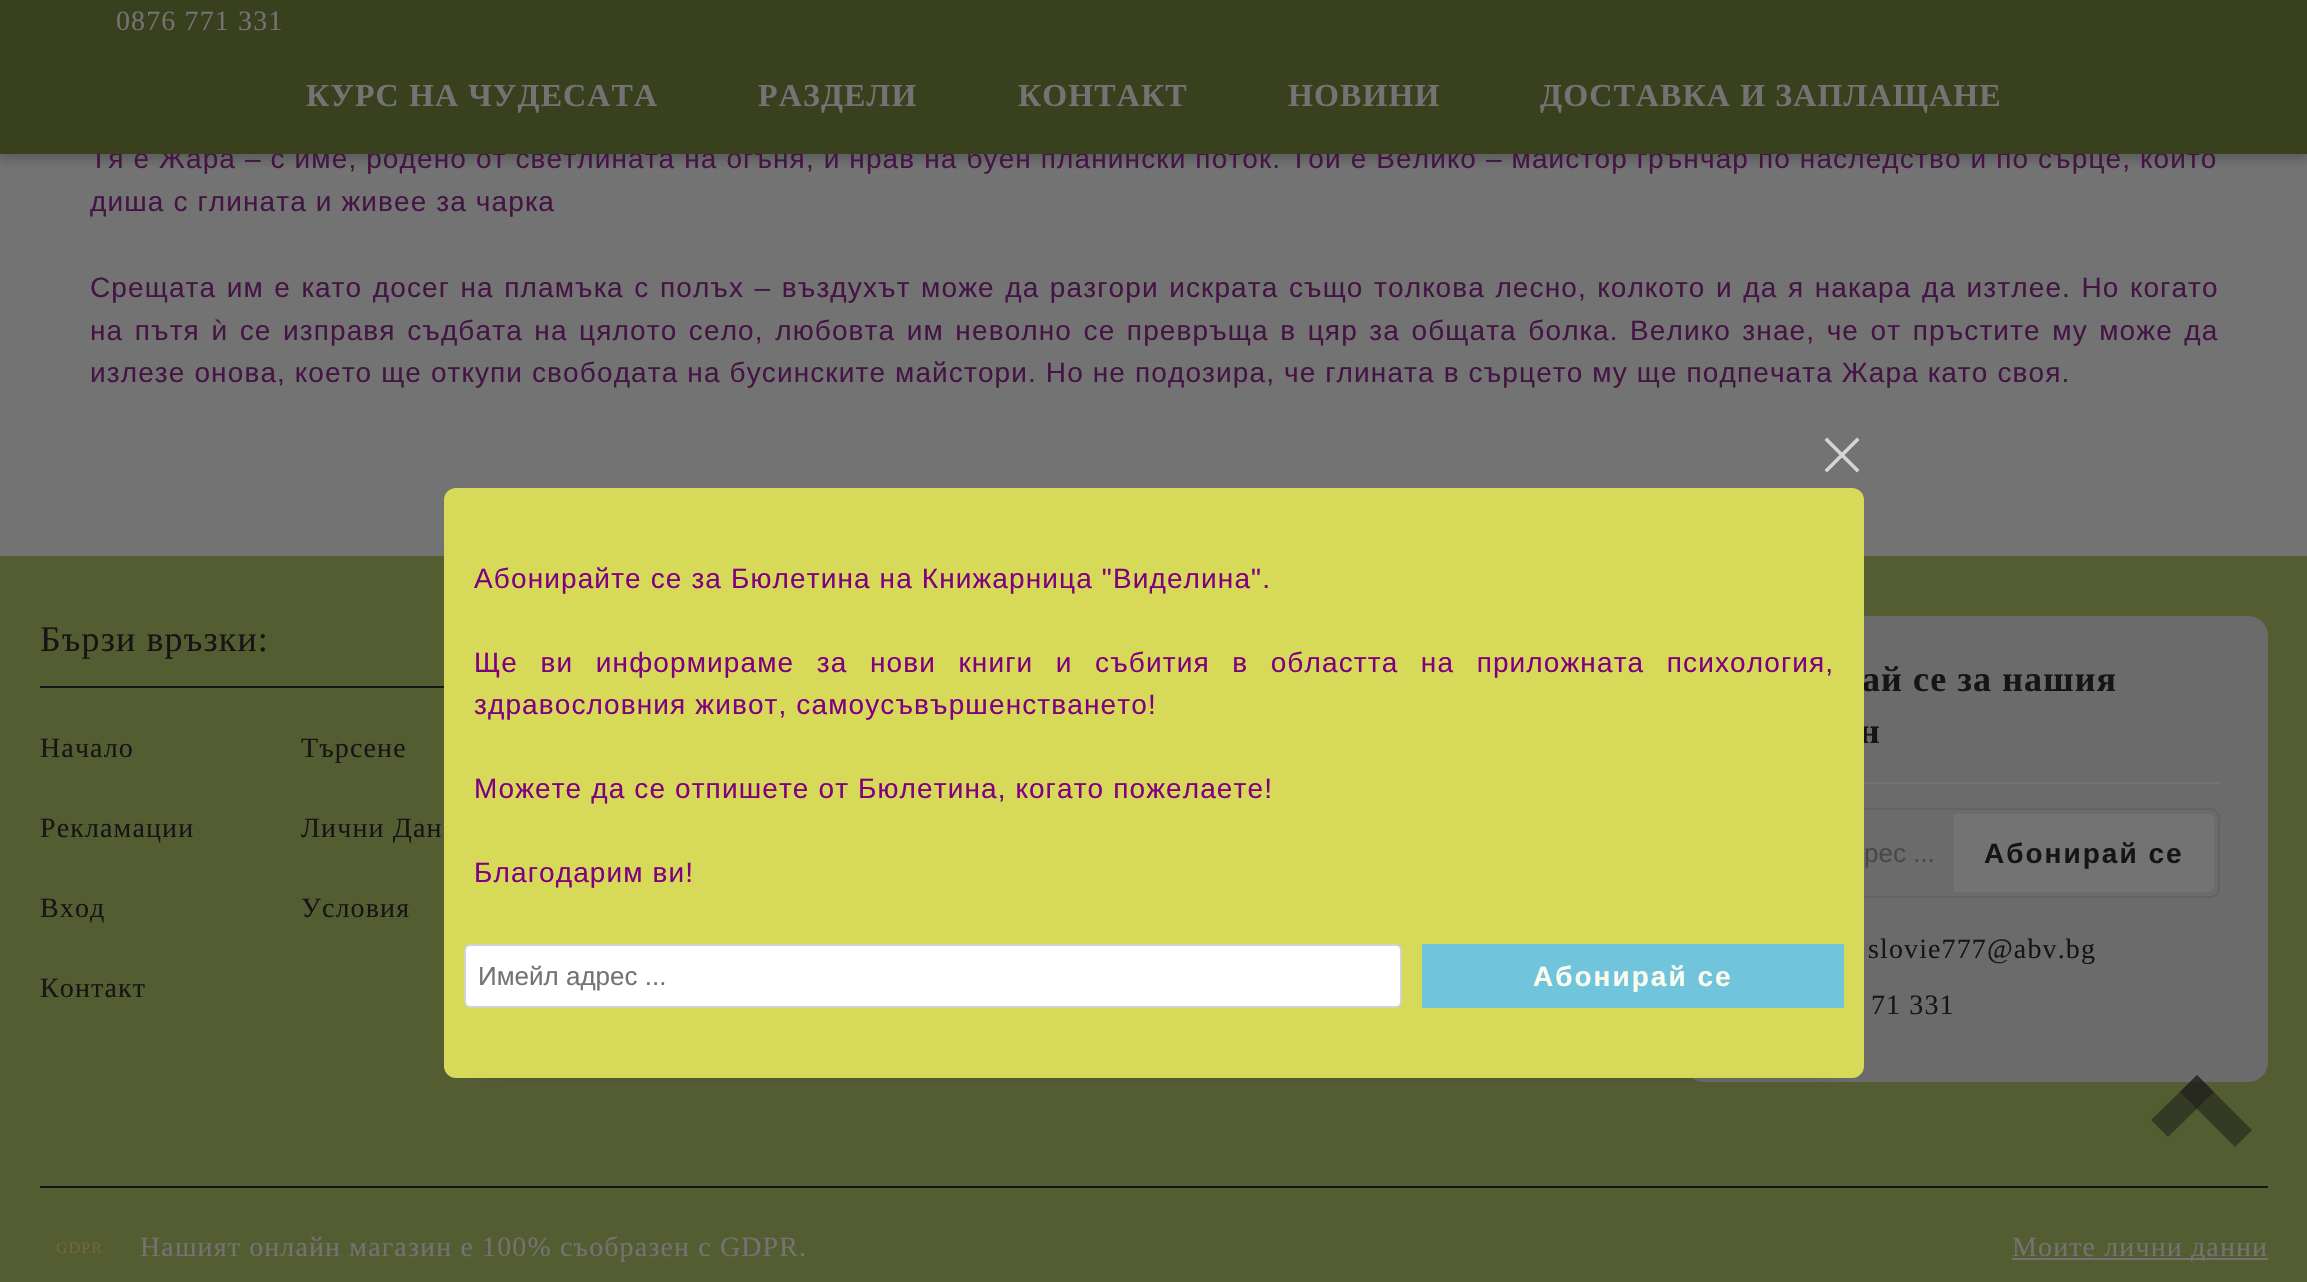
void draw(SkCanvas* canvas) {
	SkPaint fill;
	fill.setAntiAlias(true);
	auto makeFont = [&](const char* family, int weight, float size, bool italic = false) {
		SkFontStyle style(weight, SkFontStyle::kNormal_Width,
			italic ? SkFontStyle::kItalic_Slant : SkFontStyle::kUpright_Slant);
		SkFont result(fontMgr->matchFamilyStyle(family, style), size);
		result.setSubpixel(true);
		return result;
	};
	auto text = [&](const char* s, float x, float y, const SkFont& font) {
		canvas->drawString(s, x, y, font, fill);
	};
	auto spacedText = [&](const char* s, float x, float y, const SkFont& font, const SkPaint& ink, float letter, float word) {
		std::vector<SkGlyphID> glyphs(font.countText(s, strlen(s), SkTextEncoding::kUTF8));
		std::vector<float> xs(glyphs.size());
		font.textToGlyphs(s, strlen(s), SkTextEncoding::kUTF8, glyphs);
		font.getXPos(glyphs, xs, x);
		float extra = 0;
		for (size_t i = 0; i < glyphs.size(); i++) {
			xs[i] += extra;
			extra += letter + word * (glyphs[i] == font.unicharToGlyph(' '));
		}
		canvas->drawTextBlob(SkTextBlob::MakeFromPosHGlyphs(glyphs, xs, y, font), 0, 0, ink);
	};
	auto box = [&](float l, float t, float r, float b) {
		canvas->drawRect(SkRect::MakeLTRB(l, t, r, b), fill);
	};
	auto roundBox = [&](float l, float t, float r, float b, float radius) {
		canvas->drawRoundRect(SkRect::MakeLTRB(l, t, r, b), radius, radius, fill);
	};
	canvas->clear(0xFF737373);
	fill.setColor(0x40151515);
	fill.setMaskFilter(SkMaskFilter::MakeBlur(kNormal_SkBlurStyle, 5));
	canvas->drawRect(SkRect::MakeLTRB(0, 6, 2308, 160), fill);
	fill.setMaskFilter(nullptr);
	fill.setColor(0xFF545D32);
	box(0, 556, 2307, 1282);
	fill.setColor(0xFF151515);
	box(40, 686, 444, 688);
	fill.setColor(0xFF6B6B6B);
	roundBox(1684, 616, 2268, 1082, 20);
	fill.setColor(0xFF737373);
	box(1864, 782, 2220, 784);
	fill.setStyle(SkPaint::kStroke_Style);
	fill.setStrokeWidth(2);
	fill.setColor(0xFF626262);
	canvas->drawRoundRect(SkRect::MakeLTRB(1733, 809, 2219, 897), 9, 9, fill);
	fill.setStyle(SkPaint::kFill_Style);
	fill.setColor(0xFF737373);
	canvas->drawPath(SkPathBuilder().moveTo(1954, 814).lineTo(2208, 814).cubicTo(2211.5f, 814, 2214, 816.5f, 2214, 820).lineTo(2214, 886).cubicTo(2214, 889.5f, 2211.5f, 892, 2208, 892).lineTo(1954, 892).close().detach(), fill);
	fill.setColor(0xFF151515);
	box(40, 1186, 2268, 1188);
	fill.setColor(0xFF737373);
	box(2012, 1258, 2268, 1260);
	fill.setColor(0xFF444444);
	fill.setMaskFilter(SkMaskFilter::MakeBlur(kNormal_SkBlurStyle, 15));
	canvas->drawRect(SkRect::MakeLTRB(474, 532, 1834, 1062), fill);
	fill.setMaskFilter(nullptr);
	fill.setColor(0xFFD5D5D5);
	canvas->drawPath(SkPathBuilder().moveTo(1857, 437.5f).lineTo(1859.5f, 440).lineTo(1827, 472.5f).lineTo(1824.5f, 470).close().detach(), fill);
	canvas->drawPath(SkPathBuilder().moveTo(1824.5f, 440).lineTo(1827, 437.5f).lineTo(1859.5f, 470).lineTo(1857, 472.5f).close().detach(), fill);
	fill.setColor(0x80151515);
	canvas->drawPath(SkPathBuilder().moveTo(2168, 1137).lineTo(2151, 1120).lineTo(2197, 1075).lineTo(2214, 1092).close().detach(), fill);
	canvas->drawPath(SkPathBuilder().moveTo(2235, 1147).lineTo(2180, 1092).lineTo(2197, 1075).lineTo(2252, 1130).close().detach(), fill);
	auto font1 = makeFont("Liberation Sans", 400, 28);
	fill.setColor(0xFF441544);
	spacedText("Тя е Жара – с име, родено от светлината на огъня, и нрав на буен планински поток. Той е Велико – майстор грънчар по наследство и по сърце, който", 90, 168, font1, fill, 1.12f, 0);
	fill.setColor(0xFF39401D);
	box(0, 0, 2307, 154);
	auto font2 = makeFont("Liberation Serif", 700, 32);
	fill.setColor(0xFF737373);
	spacedText("ДОСТАВКА И ЗАПЛАЩАНЕ", 1540, 106, font2, fill, 1.12f, 0);
	spacedText("НОВИНИ", 1288, 106, font2, fill, 1.12f, 0);
	spacedText("КОНТАКТ", 1018, 106, font2, fill, 1.12f, 0);
	spacedText("РАЗДЕЛИ", 758, 106, font2, fill, 1.12f, 0);
	spacedText("КУРС НА ЧУДЕСАТА", 306, 106, font2, fill, 1.12f, 0);
	auto font3 = makeFont("Liberation Serif", 400, 28);
	spacedText("0876 771 331", 116, 30, font3, fill, 1.12f, 0);
	fill.setColor(0xFF441544);
	spacedText("диша с глината и живее за чарка", 90, 211, font1, fill, 1.12f, 0);
	spacedText("Срещата им е като досег на пламъка с полъх – въздухът може да разгори искрата също толкова лесно, колкото и да я накара да изтлее. Но когато", 90, 297, font1, fill, 1.12f, 1.6f);
	spacedText("на пътя ѝ се изправя съдбата на цялото село, любовта им неволно се превръща в цяр за общата болка. Велико знае, че от пръстите му може да", 90, 340, font1, fill, 1.12f, 2.6f);
	spacedText("излезе онова, което ще откупи свободата на бусинските майстори. Но не подозира, че глината в сърцето му ще подпечата Жара като своя.", 90, 382, font1, fill, 1.12f, 0);
	auto font4 = makeFont("Liberation Serif", 400, 36);
	fill.setColor(0xFF151515);
	spacedText("Бързи връзки:", 40, 651, font4, fill, 1.12f, 0);
	spacedText("Начало", 40, 757, font3, fill, 1.12f, 0);
	spacedText("Рекламации", 40, 837, font3, fill, 1.12f, 0);
	spacedText("Вход", 40, 917, font3, fill, 1.12f, 0);
	spacedText("Контакт", 40, 997, font3, fill, 1.12f, 0);
	spacedText("Търсене", 301, 757, font3, fill, 1.12f, 0);
	spacedText("Лични Дан", 301, 837, font3, fill, 1.12f, 0);
	spacedText("Условия", 301, 917, font3, fill, 1.12f, 0);
	auto font5 = makeFont("Liberation Serif", 700, 36);
	spacedText("ай се за нашия", 1862, 691, font5, fill, 1.12f, 0);
	spacedText("н", 1859, 743, font5, fill, 1.12f, 0);
	auto font6 = makeFont("Liberation Sans", 400, 26);
	fill.setColor(0xFF484848);
	text("рес ...", 1864, 862, font6);
	auto font7 = makeFont("Liberation Sans", 700, 28);
	fill.setColor(0xFF151515);
	spacedText("Абонирай се", 1984, 863, font7, fill, 2, 0);
	spacedText("slovie777@abv.bg", 1868, 958, font3, fill, 1.12f, 0);
	spacedText("71 331", 1871, 1014, font3, fill, 1.12f, 0);
	auto font8 = makeFont("Liberation Serif", 400, 16);
	fill.setColor(0xFF736836);
	spacedText("GDPR", 56, 1253, font8, fill, 1.12f, 0);
	fill.setColor(0xFF737373);
	spacedText("Нашият онлайн магазин е 100% съобразен с GDPR.", 140, 1256, font3, fill, 1.12f, 0);
	spacedText("Моите лични данни", 2012, 1256, font3, fill, 1.12f, 0);
	fill.setColor(0xFFD7DA59);
	roundBox(444, 488, 1864, 1078, 12);
	fill.setColor(0xFF800080);
	spacedText("Абонирайте се за Бюлетина на Книжарница \"Виделина\".", 474, 588, font1, fill, 1.12f, 0);
	spacedText("Ще ви информираме за нови книги и събития в областта на приложната психология,", 474, 672, font1, fill, 1.12f, 13.6f);
	spacedText("здравословния живот, самоусъвършенстването!", 474, 714, font1, fill, 1.12f, 0);
	spacedText("Можете да се отпишете от Бюлетина, когато пожелаете!", 474, 798, font1, fill, 1.12f, 0);
	spacedText("Благодарим ви!", 474, 882, font1, fill, 1.12f, 0);
	fill.setColor(0xFFFFFFFF);
	canvas->drawRoundRect(SkRect::MakeLTRB(465, 945, 1401, 1007), 5, 5, fill);
	fill.setStyle(SkPaint::kStroke_Style);
	fill.setColor(0xFFD2D2D2);
	canvas->drawRoundRect(SkRect::MakeLTRB(465, 945, 1401, 1007), 5, 5, fill);
	fill.setStyle(SkPaint::kFill_Style);
	fill.setColor(0xFF737373);
	text("Имейл адрес ...", 478, 985, font6);
	fill.setColor(0xFF70C5DD);
	box(1422, 944, 1844, 1008);
	fill.setColor(0xFFFBFBEE);
	spacedText("Абонирай се", 1533, 986, font7, fill, 2, 0);
}
